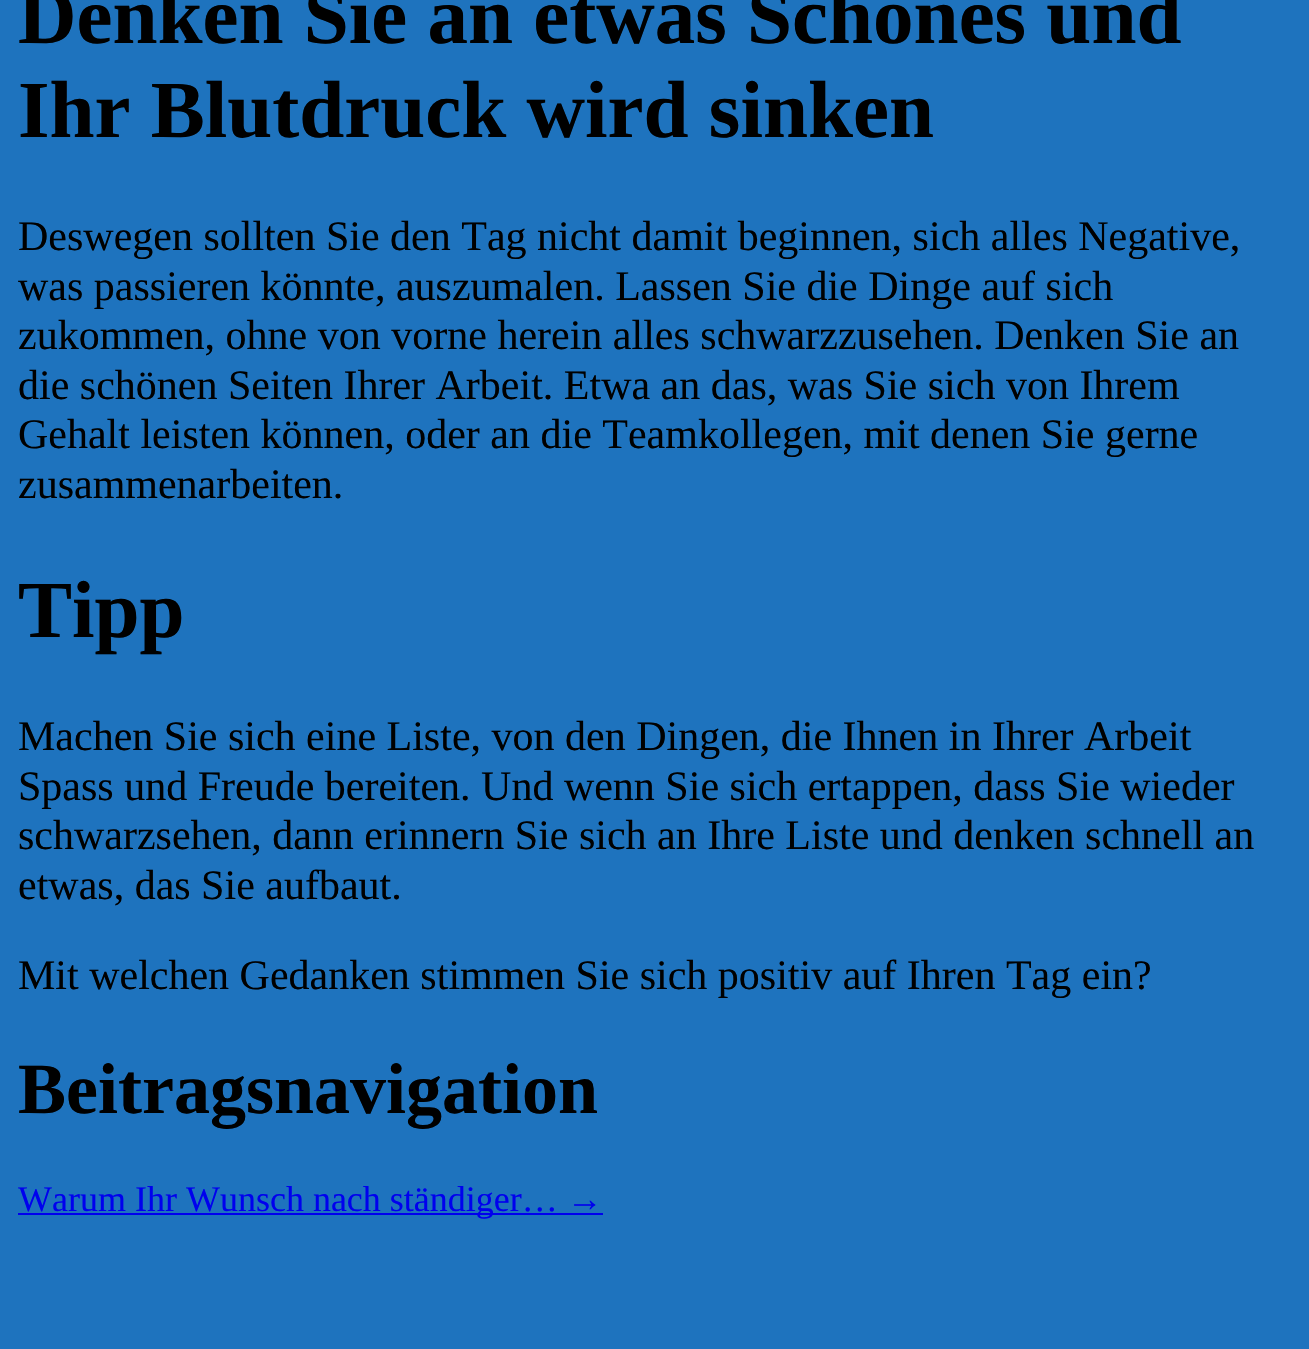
void draw(SkCanvas* canvas) {
	SkPaint fill;
	fill.setAntiAlias(true);
	auto makeFont = [&](const char* family, int weight, float size, bool italic = false) {
		SkFontStyle style(weight, SkFontStyle::kNormal_Width,
			italic ? SkFontStyle::kItalic_Slant : SkFontStyle::kUpright_Slant);
		SkFont result(fontMgr->matchFamilyStyle(family, style), size);
		result.setSubpixel(true);
		return result;
	};
	auto text = [&](const char* s, float x, float y, const SkFont& font) {
		canvas->drawString(s, x, y, font, fill);
	};
	auto box = [&](float l, float t, float r, float b) {
		canvas->drawRect(SkRect::MakeLTRB(l, t, r, b), fill);
	};
	canvas->clear(0xFF1E73BE);
	fill.setColor(0xFF0000EE);
	box(18, 1213, 603, 1215);
	auto font1 = makeFont("Liberation Serif", 700, 81);
	fill.setColor(0xFF000000);
	text("Denken Sie an etwas Schönes und", 18, 43, font1);
	text("Ihr Blutdruck wird sinken", 18, 137, font1);
	auto font2 = makeFont("Liberation Serif", 400, 42);
	text("Deswegen sollten Sie den Tag nicht damit beginnen, sich alles Negative,", 18, 250, font2);
	text("was passieren könnte, auszumalen. Lassen Sie die Dinge auf sich", 18, 300, font2);
	text("zukommen, ohne von vorne herein alles schwarzzusehen. Denken Sie an", 18, 349, font2);
	text("die schönen Seiten Ihrer Arbeit. Etwa an das, was Sie sich von Ihrem", 18, 399, font2);
	text("Gehalt leisten können, oder an die Teamkollegen, mit denen Sie gerne", 18, 448, font2);
	text("zusammenarbeiten.", 18, 498, font2);
	text("Tipp", 18, 637, font1);
	text("Machen Sie sich eine Liste, von den Dingen, die Ihnen in Ihrer Arbeit", 18, 750, font2);
	text("Spass und Freude bereiten. Und wenn Sie sich ertappen, dass Sie wieder", 18, 800, font2);
	text("schwarzsehen, dann erinnern Sie sich an Ihre Liste und denken schnell an", 18, 849, font2);
	text("etwas, das Sie aufbaut.", 18, 899, font2);
	text("Mit welchen Gedanken stimmen Sie sich positiv auf Ihren Tag ein?", 18, 989, font2);
	auto font3 = makeFont("Liberation Serif", 700, 72);
	text("Beitragsnavigation", 18, 1113, font3);
	auto font4 = makeFont("Liberation Serif", 400, 36);
	fill.setColor(0xFF0000EE);
	text("Warum Ihr Wunsch nach ständiger… →", 18, 1211, font4);
}
